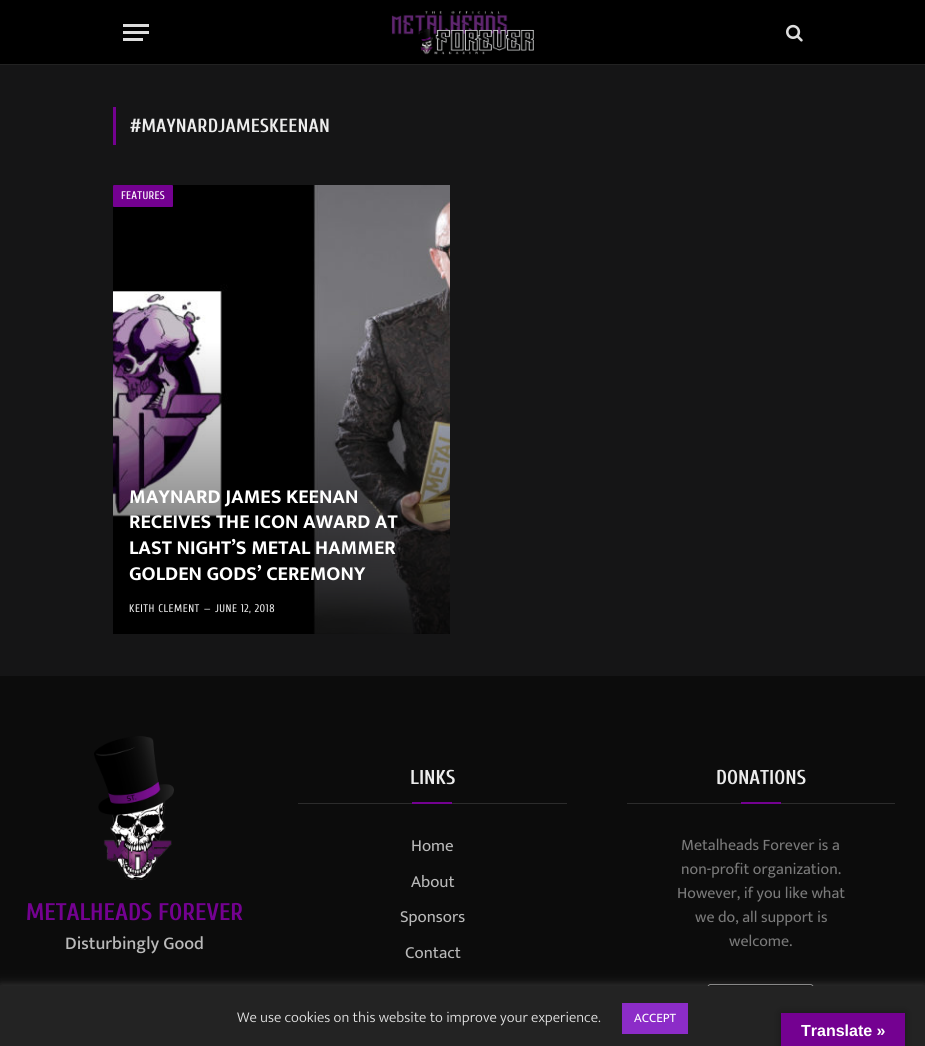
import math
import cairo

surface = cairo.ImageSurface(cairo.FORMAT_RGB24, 925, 1046)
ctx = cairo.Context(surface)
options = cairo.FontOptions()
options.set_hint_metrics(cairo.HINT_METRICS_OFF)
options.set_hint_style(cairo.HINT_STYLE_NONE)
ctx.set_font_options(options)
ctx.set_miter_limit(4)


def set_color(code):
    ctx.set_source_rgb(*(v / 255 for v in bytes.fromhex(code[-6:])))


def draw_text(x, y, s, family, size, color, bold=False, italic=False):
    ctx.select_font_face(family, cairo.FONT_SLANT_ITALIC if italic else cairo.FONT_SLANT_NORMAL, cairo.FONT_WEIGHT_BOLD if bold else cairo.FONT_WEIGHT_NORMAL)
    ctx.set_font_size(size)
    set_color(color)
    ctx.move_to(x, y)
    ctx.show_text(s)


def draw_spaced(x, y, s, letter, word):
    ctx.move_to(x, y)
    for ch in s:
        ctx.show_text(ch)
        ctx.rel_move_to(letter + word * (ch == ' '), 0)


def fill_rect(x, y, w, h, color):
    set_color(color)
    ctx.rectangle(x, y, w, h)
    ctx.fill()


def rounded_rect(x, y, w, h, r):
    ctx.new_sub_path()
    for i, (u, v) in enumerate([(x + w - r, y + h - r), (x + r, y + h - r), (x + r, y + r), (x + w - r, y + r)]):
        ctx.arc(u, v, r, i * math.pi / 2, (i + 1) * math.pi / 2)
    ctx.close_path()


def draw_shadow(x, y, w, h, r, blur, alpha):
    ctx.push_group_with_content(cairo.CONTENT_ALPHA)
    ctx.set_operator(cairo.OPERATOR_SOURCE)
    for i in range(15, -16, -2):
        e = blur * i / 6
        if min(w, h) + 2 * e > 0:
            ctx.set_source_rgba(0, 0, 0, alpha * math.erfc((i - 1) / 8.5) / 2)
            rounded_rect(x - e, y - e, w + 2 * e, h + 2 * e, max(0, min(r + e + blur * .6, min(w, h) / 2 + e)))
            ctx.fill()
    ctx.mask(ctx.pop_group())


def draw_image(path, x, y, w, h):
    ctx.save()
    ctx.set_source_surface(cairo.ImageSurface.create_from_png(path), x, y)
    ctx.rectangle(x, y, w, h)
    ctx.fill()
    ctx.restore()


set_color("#151516")
ctx.paint()
fill_rect(0, 0, 925, 64, "#000000")
fill_rect(0, 64, 925, 1, "#222222")
fill_rect(123, 38, 20, 3, "#dddddd")
fill_rect(123, 24, 26, 3, "#dddddd")
fill_rect(123, 31, 26, 3, "#dddddd")
draw_image("assets/img1.png", 391, 10, 143, 45)
draw_image("assets/img2.png", 786, 24, 17, 18)
fill_rect(113, 107, 3, 38, "#740191")
ctx.select_font_face("Cuprum", cairo.FONT_SLANT_NORMAL, cairo.FONT_WEIGHT_BOLD)
ctx.set_font_size(19)
set_color("#ececec")
draw_spaced(130, 132, "#MAYNARDJAMESKEENAN", 0.2, 0)
draw_image("assets/img3.png", 113, 185, 337, 449)
set_color("#740191")
rounded_rect(113, 185, 60, 22, 1)
ctx.fill()
ctx.select_font_face("Cuprum Medium")
ctx.set_font_size(11)
set_color("#ffffff")
draw_spaced(121, 199, "FEATURES", 0.25, 0)
draw_text(129, 503, "MAYNARD JAMES KEENAN", "Mukta Vaani", 20, "#ffffff", bold=True)
draw_text(129, 528, "RECEIVES THE ICON AWARD AT", "Mukta Vaani", 20, "#ffffff", bold=True)
draw_text(129, 554, "LAST NIGHT’S METAL HAMMER", "Mukta Vaani", 20, "#ffffff", bold=True)
draw_text(129, 580, "GOLDEN GODS’ CEREMONY", "Mukta Vaani", 20, "#ffffff", bold=True)
ctx.select_font_face("Cuprum")
ctx.set_font_size(11)
set_color("#ececec")
draw_spaced(129, 612, "KEITH CLEMENT", 0.5, 0)
draw_text(204, 612, "—", "Cuprum", 10, "#ececec")
ctx.set_font_size(11)
draw_spaced(215, 612, "JUNE 12, 2018", 0.5, 0)
fill_rect(0, 676, 925, 310, "#0c0c0c")
draw_image("assets/img4.png", 94, 736, 80, 144)
draw_text(26, 920, "METALHEADS FOREVER", "Cuprum", 24, "#740191", bold=True)
draw_text(65, 949, "Disturbingly Good", "Mukta Vaani Medium", 18, "#bababa")
fill_rect(298, 803, 269, 1, "#2c2c2c")
draw_text(410, 784, "LINKS", "Cuprum", 20, "#ececec", bold=True)
fill_rect(412, 802, 40, 2, "#740191")
draw_text(411, 851, "Home", "Mukta Vaani", 17, "#bababa")
draw_text(411, 887, "About", "Mukta Vaani", 17, "#bababa")
draw_text(400, 922, "Sponsors", "Mukta Vaani", 17, "#bababa")
draw_text(405, 958, "Contact", "Mukta Vaani", 17, "#bababa")
fill_rect(627, 803, 268, 1, "#2c2c2c")
draw_text(716, 784, "DONATIONS", "Cuprum", 20, "#ececec", bold=True)
fill_rect(741, 802, 40, 2, "#740191")
draw_text(681, 850, "Metalheads Forever is a", "Mukta Vaani", 16, "#7a7a7a")
draw_text(681, 874, "non-profit organization.", "Mukta Vaani", 16, "#7a7a7a")
draw_text(677, 898, "However, if you like what", "Mukta Vaani", 16, "#7a7a7a")
draw_text(695, 922, "we do, all support is", "Mukta Vaani", 16, "#7a7a7a")
draw_text(729, 946, "welcome.", "Mukta Vaani", 16, "#7a7a7a")
draw_image("assets/img5.png", 707, 984, 107, 2)
set_color("#acabab")
draw_shadow(0, 985, 925, 60, 0, 5, 0.3)
fill_rect(0, 986, 925, 60, "#232323")
draw_text(237, 1022, "We use cookies on this website to improve your experience.", "Mukta Vaani Light", 15, "#e4e4e4")
fill_rect(622, 1003, 66, 31, "#8c2cc8")
draw_text(634, 1022, "ACCEPT", "Mukta Vaani", 13, "#ffffff")
set_color("#000000")
draw_shadow(781, 1013, 124, 33, 0, 4.5, 0.3)
fill_rect(781, 1013, 124, 33, "#740191")
draw_text(801, 1036, "Translate »", "Liberation Sans", 16, "#ffffff", bold=True)
surface.write_to_png("output.png")
